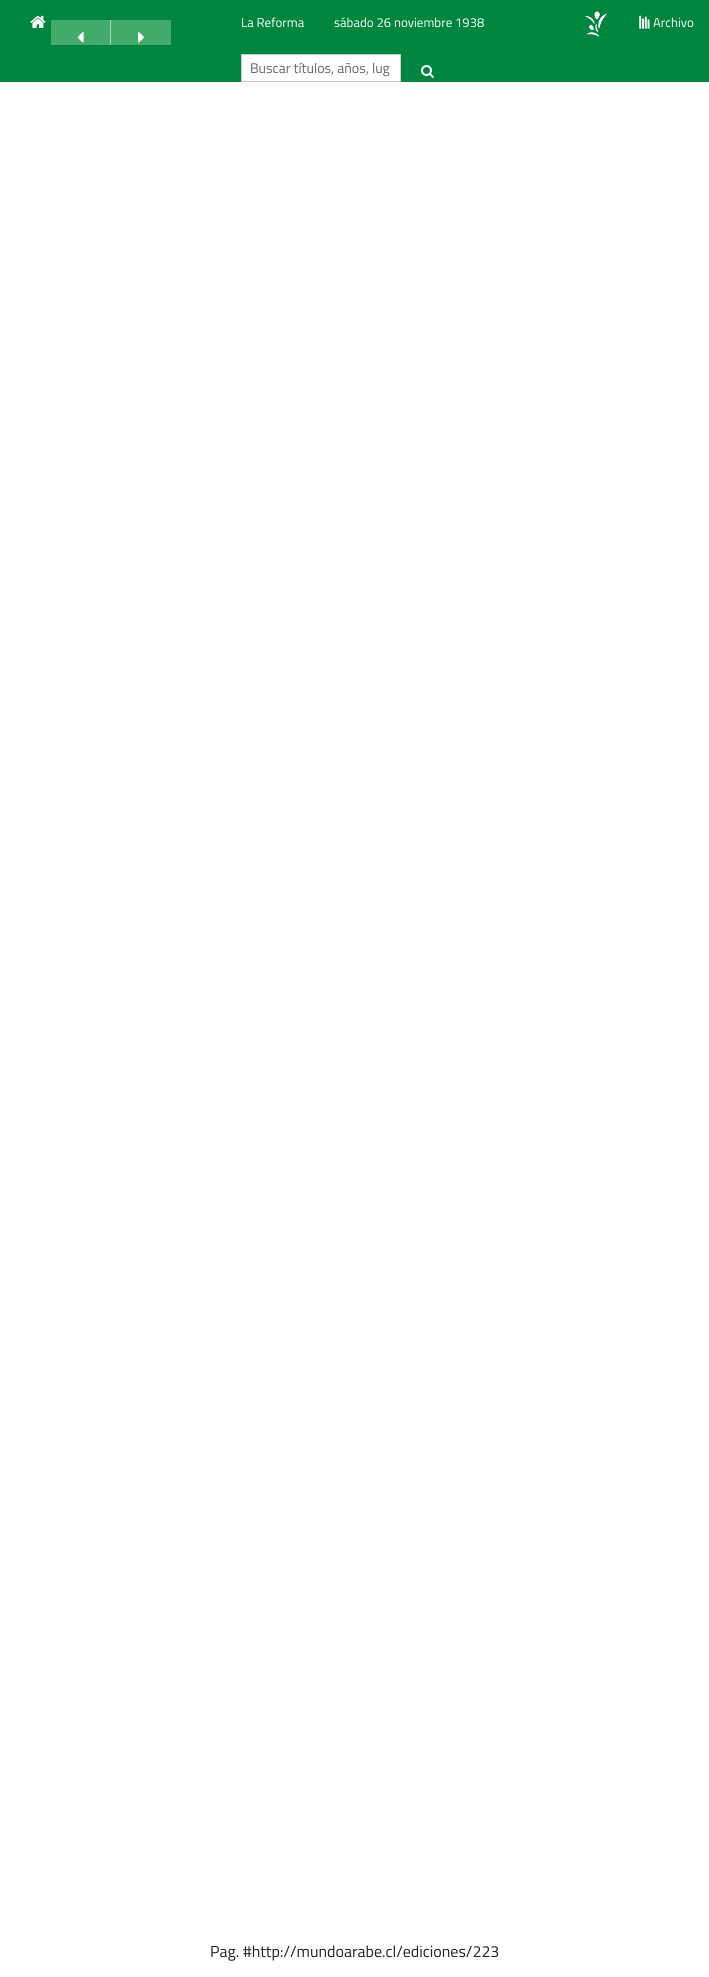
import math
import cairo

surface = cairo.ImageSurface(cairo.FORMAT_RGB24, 709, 1977)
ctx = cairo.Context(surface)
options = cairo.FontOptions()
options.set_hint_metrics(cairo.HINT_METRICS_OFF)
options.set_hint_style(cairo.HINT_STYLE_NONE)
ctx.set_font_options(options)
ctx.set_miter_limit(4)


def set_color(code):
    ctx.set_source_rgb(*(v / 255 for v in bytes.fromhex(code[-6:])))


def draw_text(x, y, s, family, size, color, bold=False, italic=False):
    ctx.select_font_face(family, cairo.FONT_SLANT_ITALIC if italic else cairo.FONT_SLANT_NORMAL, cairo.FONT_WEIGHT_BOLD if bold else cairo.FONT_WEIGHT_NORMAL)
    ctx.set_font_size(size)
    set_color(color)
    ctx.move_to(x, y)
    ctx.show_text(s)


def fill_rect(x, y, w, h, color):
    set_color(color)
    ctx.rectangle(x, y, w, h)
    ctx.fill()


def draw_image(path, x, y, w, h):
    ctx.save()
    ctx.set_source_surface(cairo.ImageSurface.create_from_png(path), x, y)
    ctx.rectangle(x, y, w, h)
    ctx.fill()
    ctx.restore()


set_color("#ffffff")
ctx.paint()
fill_rect(0, 0, 709, 45, "#00853f")
draw_image("assets/img1.png", 30, 15, 16, 13)
fill_rect(51, 20, 59, 25, "#43ac6a")
draw_image("assets/img2.png", 77, 32, 7, 11)
fill_rect(111, 20, 60, 25, "#43ac6a")
fill_rect(110, 20, 1, 28, "#a1d6b5")
draw_image("assets/img3.png", 138, 32, 6, 11)
draw_text(241, 27, "La Reforma", "Titillium Web", 13, "#ffffff")
draw_text(334, 27, "sábado 26 noviembre 1938", "Titillium Web", 13, "#ffffff")
draw_image("assets/img4.png", 585, 11, 22, 26)
draw_image("assets/img5.png", 639, 15, 11, 14)
draw_text(653, 27, "Archivo", "Titillium Web", 13, "#ffffff")
fill_rect(0, 45, 709, 37, "#00853f")
set_color("#ffffff")
ctx.rectangle(241.5, 54.5, 159, 27)
ctx.fill_preserve()
set_color("#cccccc")
ctx.set_line_width(1)
ctx.stroke()
draw_text(250, 73, "Buscar títulos, años, lug", "Titillium Web", 14, "#666666")
draw_image("assets/img6.png", 421, 65, 13, 13)
draw_text(210, 1957, "Pag. #http://mundoarabe.cl/ediciones/223", "Titillium Web", 16, "#222222")
surface.write_to_png("output.png")
